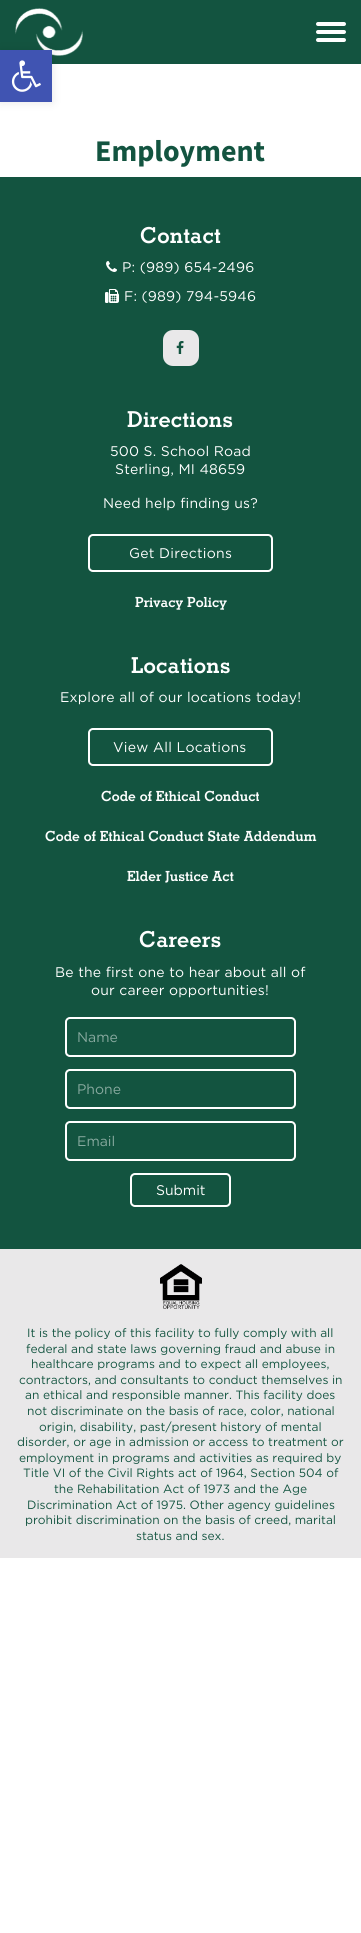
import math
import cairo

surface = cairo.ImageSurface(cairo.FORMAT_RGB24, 361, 1933)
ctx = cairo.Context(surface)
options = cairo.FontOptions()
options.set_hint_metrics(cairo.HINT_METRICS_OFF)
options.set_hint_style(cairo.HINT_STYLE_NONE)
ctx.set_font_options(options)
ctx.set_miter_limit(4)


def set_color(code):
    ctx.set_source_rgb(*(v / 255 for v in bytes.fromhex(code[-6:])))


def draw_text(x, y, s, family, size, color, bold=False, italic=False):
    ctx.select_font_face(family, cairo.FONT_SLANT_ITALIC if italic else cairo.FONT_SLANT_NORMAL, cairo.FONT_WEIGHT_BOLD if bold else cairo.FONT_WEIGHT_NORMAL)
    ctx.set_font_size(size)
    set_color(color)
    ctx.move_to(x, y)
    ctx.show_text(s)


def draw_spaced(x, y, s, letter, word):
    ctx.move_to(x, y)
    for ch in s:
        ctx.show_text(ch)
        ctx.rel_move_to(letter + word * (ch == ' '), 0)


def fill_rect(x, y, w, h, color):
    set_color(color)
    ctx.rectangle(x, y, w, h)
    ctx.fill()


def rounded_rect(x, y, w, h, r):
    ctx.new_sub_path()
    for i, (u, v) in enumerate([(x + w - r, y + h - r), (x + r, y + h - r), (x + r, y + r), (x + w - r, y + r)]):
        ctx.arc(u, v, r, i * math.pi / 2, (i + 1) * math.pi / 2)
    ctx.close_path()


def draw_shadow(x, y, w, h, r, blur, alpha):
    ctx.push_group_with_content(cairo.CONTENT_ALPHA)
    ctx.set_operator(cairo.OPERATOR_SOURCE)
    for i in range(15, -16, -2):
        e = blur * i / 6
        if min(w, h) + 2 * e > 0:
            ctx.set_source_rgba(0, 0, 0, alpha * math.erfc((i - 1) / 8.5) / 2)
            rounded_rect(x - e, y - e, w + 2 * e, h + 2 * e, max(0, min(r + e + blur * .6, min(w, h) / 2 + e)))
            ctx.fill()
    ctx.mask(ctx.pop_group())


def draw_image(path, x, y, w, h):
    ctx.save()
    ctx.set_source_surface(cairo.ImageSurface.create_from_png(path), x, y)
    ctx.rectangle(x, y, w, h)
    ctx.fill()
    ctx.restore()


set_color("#ffffff")
ctx.paint()
fill_rect(0, 0, 361, 64, "#135440")
draw_image("assets/img1.png", 15, 8, 68, 48)
set_color("#ffffff")
rounded_rect(316, 22, 30, 4, 2)
ctx.fill()
rounded_rect(316, 30, 30, 4, 2)
ctx.fill()
rounded_rect(316, 38, 30, 4, 2)
ctx.fill()
set_color("#000000")
draw_shadow(0, 50, 52, 52, 0, 5, 0.1)
fill_rect(0, 50, 52, 52, "#4054b2")
draw_image("assets/img2.png", 11, 60, 30, 32)
draw_text(95, 161, "Employment", "Source Sans Pro", 30, "#135440", bold=True)
fill_rect(0, 177, 361, 1072, "#135440")
ctx.select_font_face("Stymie", cairo.FONT_SLANT_NORMAL, cairo.FONT_WEIGHT_BOLD)
ctx.set_font_size(22)
set_color("#ffffff")
draw_spaced(140, 243, "Contact", 0.2, 0)
draw_image("assets/img3.png", 106, 261, 11, 11)
ctx.select_font_face("Gotham")
ctx.set_font_size(14)
draw_spaced(122, 272, "P: (989) 654-2496", 0.2, 0)
draw_image("assets/img4.png", 105, 289, 14, 14)
draw_spaced(124, 301, "F: (989) 794-5946", 0.2, 0)
set_color("#e9e8e9")
rounded_rect(163, 330, 36, 36, 10)
ctx.fill()
draw_image("assets/img5.png", 176, 341, 8, 13)
ctx.select_font_face("Stymie", cairo.FONT_SLANT_NORMAL, cairo.FONT_WEIGHT_BOLD)
ctx.set_font_size(22)
set_color("#ffffff")
draw_spaced(127, 427, "Directions", 0.2, 0)
ctx.select_font_face("Gotham")
ctx.set_font_size(14)
draw_spaced(110, 456, "500 S. School Road", 0.2, 0)
draw_spaced(115, 474, "Sterling, MI 48659", 0.2, 0)
draw_spaced(103, 508, "Need help finding us?", 0.2, 0)
rounded_rect(89, 535, 183, 36, 4)
ctx.stroke()
draw_spaced(129, 558, "Get Directions", 0.25, 0)
draw_text(135, 607, "Privacy Policy", "Stymie", 14, "#ffffff", bold=True)
ctx.set_font_size(22)
draw_spaced(131, 673, "Locations", 0.2, 0)
ctx.select_font_face("Gotham")
ctx.set_font_size(14)
draw_spaced(60, 702, "Explore all of our locations today!", 0.2, 0)
rounded_rect(89, 729, 183, 36, 4)
ctx.stroke()
draw_spaced(113, 752, "View All Locations", 0.25, 0)
draw_text(101, 801, "Code of Ethical Conduct", "Stymie", 14, "#ffffff", bold=True)
draw_text(45, 841, "Code of Ethical Conduct State Addendum", "Stymie", 14, "#ffffff", bold=True)
draw_text(127, 881, "Elder Justice Act", "Stymie", 14, "#ffffff", bold=True)
ctx.set_font_size(22)
draw_spaced(139, 947, "Careers", 0.2, 0)
ctx.select_font_face("Gotham")
ctx.set_font_size(14)
draw_spaced(55, 977, "Be the first one to hear about all of", 0.2, 0)
draw_spaced(91, 995, "our career opportunities!", 0.2, 0)
rounded_rect(66, 1018, 229, 38, 4)
ctx.stroke()
draw_text(77, 1042, "Name", "Gotham", 14, "#89aaa0")
rounded_rect(66, 1070, 229, 38, 4)
set_color("#ffffff")
ctx.stroke()
draw_text(77, 1094, "Phone", "Gotham", 14, "#89aaa0")
rounded_rect(66, 1122, 229, 38, 4)
set_color("#ffffff")
ctx.stroke()
draw_text(77, 1146, "Email", "Gotham", 14, "#89aaa0")
rounded_rect(131, 1174, 99, 32, 4)
set_color("#ffffff")
ctx.stroke()
draw_text(156, 1195, "Submit", "Gotham", 14, "#ffffff")
fill_rect(0, 1249, 361, 309, "#e9e8e9")
draw_image("assets/img6.png", 160, 1264, 42, 45)
draw_text(27, 1337, "It is the policy of this facility to fully comply with all", "Gotham", 12, "#135440")
draw_text(26, 1353, "federal and state laws governing fraud and abuse in", "Gotham", 12, "#135440")
draw_text(31, 1368, "healthcare programs and to expect all employees,", "Gotham", 12, "#135440")
draw_text(19, 1384, "contractors, and consultants to conduct themselves in", "Gotham", 12, "#135440")
draw_text(25, 1399, "an ethical and responsible manner. This facility does", "Gotham", 12, "#135440")
draw_text(27, 1415, "not discriminate on the basis of race, color, national", "Gotham", 12, "#135440")
draw_text(39, 1431, "origin, disability, past/present history of mental", "Gotham", 12, "#135440")
draw_text(17, 1446, "disorder, or age in admission or access to treatment or", "Gotham", 12, "#135440")
draw_text(19, 1462, "employment in programs and activities as required by", "Gotham", 12, "#135440")
draw_text(23, 1477, "Title VI of the Civil Rights act of 1964, Section 504 of", "Gotham", 12, "#135440")
draw_text(54, 1493, "the Rehabilitation Act of 1973 and the Age", "Gotham", 12, "#135440")
draw_text(27, 1509, "Discrimination Act of 1975. Other agency guidelines", "Gotham", 12, "#135440")
draw_text(25, 1524, "prohibit discrimination on the basis of creed, marital", "Gotham", 12, "#135440")
draw_text(136, 1540, "status and sex.", "Gotham", 12, "#135440")
surface.write_to_png("output.png")
